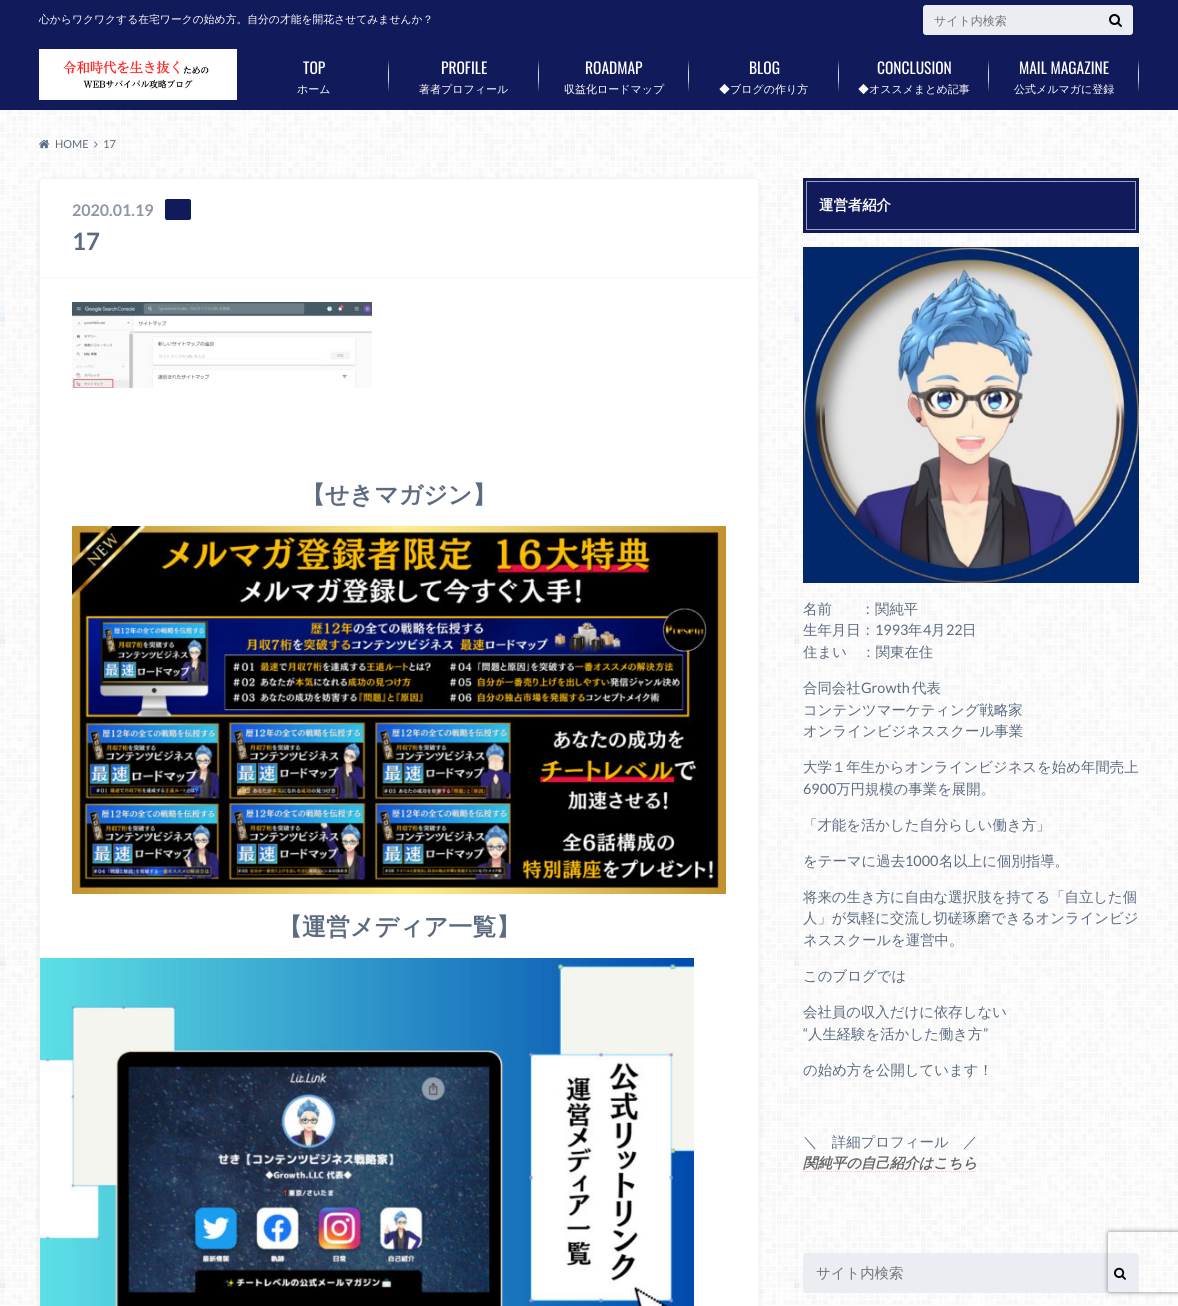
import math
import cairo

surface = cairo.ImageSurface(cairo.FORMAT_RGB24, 1178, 1306)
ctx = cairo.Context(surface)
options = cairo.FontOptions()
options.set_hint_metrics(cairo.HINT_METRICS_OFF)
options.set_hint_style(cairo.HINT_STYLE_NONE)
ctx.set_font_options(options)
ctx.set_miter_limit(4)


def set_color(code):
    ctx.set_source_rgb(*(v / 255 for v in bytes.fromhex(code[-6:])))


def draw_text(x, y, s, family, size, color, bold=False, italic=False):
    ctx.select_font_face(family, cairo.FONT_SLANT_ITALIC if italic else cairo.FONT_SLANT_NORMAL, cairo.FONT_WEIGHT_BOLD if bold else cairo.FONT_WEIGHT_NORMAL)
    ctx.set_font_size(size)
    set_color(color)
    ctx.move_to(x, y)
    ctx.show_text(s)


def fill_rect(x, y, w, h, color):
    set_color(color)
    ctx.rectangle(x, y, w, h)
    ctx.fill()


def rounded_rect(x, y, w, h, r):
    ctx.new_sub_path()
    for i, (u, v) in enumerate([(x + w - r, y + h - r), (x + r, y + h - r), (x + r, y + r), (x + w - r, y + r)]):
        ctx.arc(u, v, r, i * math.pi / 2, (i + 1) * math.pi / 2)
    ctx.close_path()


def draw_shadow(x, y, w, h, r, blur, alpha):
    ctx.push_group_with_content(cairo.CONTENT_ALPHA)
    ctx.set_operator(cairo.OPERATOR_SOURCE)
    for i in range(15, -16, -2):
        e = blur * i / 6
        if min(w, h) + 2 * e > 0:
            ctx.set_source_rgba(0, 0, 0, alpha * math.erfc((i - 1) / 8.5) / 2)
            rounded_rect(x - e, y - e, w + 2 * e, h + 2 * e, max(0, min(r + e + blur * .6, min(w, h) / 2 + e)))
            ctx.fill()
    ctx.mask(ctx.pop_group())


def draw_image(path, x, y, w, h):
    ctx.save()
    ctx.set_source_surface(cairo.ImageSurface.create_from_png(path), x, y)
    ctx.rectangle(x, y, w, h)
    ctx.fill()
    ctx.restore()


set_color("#ffffff")
ctx.paint()
draw_image("assets/img1.png", 0, 110, 1178, 1195)
fill_rect(0, 0, 1178, 110, "#111a5b")
draw_text(39, 23, "心からワクワクする在宅ワークの始め方。自分の才能を開花させてみませんか？", "WenQuanYi Zen Hei Medium", 10.8, "#ffffff")
set_color("#eaedf2")
rounded_rect(923, 5, 210, 30, 3)
ctx.fill()
draw_text(934, 25, "サイト内検索", "WenQuanYi Zen Hei Medium", 12, "#757575")
draw_image("assets/img2.png", 1109, 14, 13, 13)
draw_image("assets/img3.png", 39, 49, 198, 51)
draw_image("assets/img4.png", 388, 60, 1, 32)
draw_text(303, 74, "TOP", "Oswald", 15.5, "#ffffff")
draw_text(297, 93, "ホーム", "WenQuanYi Zen Hei Medium", 11, "#ffffff")
draw_image("assets/img4.png", 538, 60, 1, 32)
draw_text(441, 74, "PROFILE", "Oswald", 15.5, "#ffffff")
draw_text(419, 93, "著者プロフィール", "WenQuanYi Zen Hei Medium", 11, "#ffffff")
draw_image("assets/img4.png", 688, 60, 1, 32)
draw_text(585, 74, "ROADMAP", "Oswald", 15.5, "#ffffff")
draw_text(564, 93, "収益化ロードマップ", "WenQuanYi Zen Hei Medium", 11, "#ffffff")
draw_image("assets/img4.png", 838, 60, 1, 32)
draw_text(749, 74, "BLOG", "Oswald", 15.5, "#ffffff")
draw_text(719, 93, "◆ブログの作り方", "WenQuanYi Zen Hei Medium", 11, "#ffffff")
draw_image("assets/img4.png", 988, 60, 1, 32)
draw_text(877, 74, "CONCLUSION", "Oswald", 15.5, "#ffffff")
draw_text(858, 93, "◆オススメまとめ記事", "WenQuanYi Zen Hei Medium", 11, "#ffffff")
draw_image("assets/img4.png", 1138, 60, 1, 32)
draw_text(1019, 74, "MAIL MAGAZINE", "Oswald", 15.5, "#ffffff")
draw_text(1014, 93, "公式メルマガに登録", "WenQuanYi Zen Hei Medium", 11, "#ffffff")
draw_image("assets/img5.png", 39, 139, 11, 10)
draw_text(55, 148, "HOME", "Lato", 11, "#5c6b80")
draw_image("assets/img6.png", 94, 141, 4, 7)
draw_text(103, 148, "17", "Lato", 11, "#5c6b80")
set_color("#8a8a8a")
draw_shadow(39, 180, 720, 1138, 4, 2.5, 0.15)
set_color("#ffffff")
rounded_rect(39.5, 178.5, 719, 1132, 3.5)
ctx.fill_preserve()
set_color("#f3f3f3")
ctx.set_line_width(1)
ctx.stroke()
fill_rect(40, 277, 718, 1, "#f8f9fa")
draw_text(72, 216, "2020.01.19", "Lato", 16, "#8d97a6", bold=True)
set_color("#111a5b")
rounded_rect(165, 199, 26, 21, 2)
ctx.fill()
draw_text(72, 250, "17", "Lato", 24, "#5c6b80", bold=True)
draw_image("assets/img7.png", 72, 302, 300, 86)
draw_text(301, 503, "【せきマガジン】", "WenQuanYi Zen Hei", 24, "#5c6b80", bold=True)
draw_image("assets/img8.png", 72, 526, 654, 368)
draw_text(278, 935, "【運営メディア一覧】", "WenQuanYi Zen Hei", 24, "#5c6b80", bold=True)
draw_image("assets/img9.png", 40, 958, 654, 348)
fill_rect(803, 178, 336, 55, "#111a5b")
ctx.rectangle(806.5, 181.5, 329, 48)
set_color("#a0a3bd")
ctx.stroke()
draw_text(819, 210, "運営者紹介", "WenQuanYi Zen Hei", 14.4, "#ffffff", bold=True)
draw_image("assets/img10.png", 803, 247, 336, 336)
draw_text(803, 614, "名前　　：関純平", "WenQuanYi Zen Hei Medium", 14.4, "#5c6b80")
draw_text(803, 635, "生年月日：", "WenQuanYi Zen Hei Medium", 14.4, "#5c6b80")
draw_text(875, 635, "1993", "Lato", 14.4, "#5c6b80")
draw_text(908, 635, "年", "WenQuanYi Zen Hei Medium", 14.4, "#5c6b80")
draw_text(923, 635, "4", "Lato", 14.4, "#5c6b80")
draw_text(931, 635, "月", "WenQuanYi Zen Hei Medium", 14.4, "#5c6b80")
draw_text(946, 635, "22", "Lato", 14.4, "#5c6b80")
draw_text(962, 635, "日", "WenQuanYi Zen Hei Medium", 14.4, "#5c6b80")
draw_text(803, 657, "住まい　：関東在住", "WenQuanYi Zen Hei Medium", 14.4, "#5c6b80")
draw_text(803, 693, "合同会社", "WenQuanYi Zen Hei Medium", 14.4, "#5c6b80")
draw_text(861, 693, "Growth", "Lato", 14.4, "#5c6b80")
draw_text(912, 693, "代表", "WenQuanYi Zen Hei Medium", 14.4, "#5c6b80")
draw_text(803, 715, "コンテンツマーケティング戦略家", "WenQuanYi Zen Hei Medium", 14.4, "#5c6b80")
draw_text(803, 736, "オンラインビジネススクール事業", "WenQuanYi Zen Hei Medium", 14.4, "#5c6b80")
draw_text(803, 772, "大学１年生からオンラインビジネスを始め年間売上", "WenQuanYi Zen Hei Medium", 14.4, "#5c6b80")
draw_text(803, 794, "6900", "Lato", 14.4, "#5c6b80")
draw_text(836, 794, "万円規模の事業を展開。", "WenQuanYi Zen Hei Medium", 14.4, "#5c6b80")
draw_text(803, 830, "「才能を活かした自分らしい働き方」", "WenQuanYi Zen Hei Medium", 14.4, "#5c6b80")
draw_text(803, 866, "をテーマに過去", "WenQuanYi Zen Hei Medium", 14.4, "#5c6b80")
draw_text(905, 866, "1000", "Lato", 14.4, "#5c6b80")
draw_text(939, 866, "名以上に個別指導。", "WenQuanYi Zen Hei Medium", 14.4, "#5c6b80")
draw_text(803, 902, "将来の生き方に自由な選択肢を持てる「自立した個", "WenQuanYi Zen Hei Medium", 14.4, "#5c6b80")
draw_text(803, 923, "人」が気軽に交流し切磋琢磨できるオンラインビジ", "WenQuanYi Zen Hei Medium", 14.4, "#5c6b80")
draw_text(803, 945, "ネススクールを運営中。", "WenQuanYi Zen Hei Medium", 14.4, "#5c6b80")
draw_text(803, 981, "このブログでは", "WenQuanYi Zen Hei Medium", 14.4, "#5c6b80")
draw_text(803, 1017, "会社員の収入だけに依存しない", "WenQuanYi Zen Hei Medium", 14.4, "#5c6b80")
draw_text(803, 1039, "“", "Lato", 14.4, "#5c6b80")
draw_text(808, 1039, "人生経験を活かした働き方", "WenQuanYi Zen Hei Medium", 14.4, "#5c6b80")
draw_text(983, 1039, "”", "Lato", 14.4, "#5c6b80")
draw_text(803, 1075, "の始め方を公開しています！", "WenQuanYi Zen Hei Medium", 14.4, "#5c6b80")
draw_text(803, 1147, "＼　詳細プロフィール　／", "WenQuanYi Zen Hei Medium", 14.4, "#5c6b80")
draw_text(803, 1168, "関純平の自己紹介はこちら", "WenQuanYi Zen Hei", 14.4, "#666666", bold=True, italic=True)
ctx.new_path()
ctx.move_to(803, 1171.5)
ctx.line_to(977, 1171.5)
set_color("#ffc0cb")
ctx.set_dash([1, 1])
ctx.stroke()
set_color("#eaedf2")
rounded_rect(803, 1253, 336, 40, 3)
ctx.fill()
draw_text(816, 1278, "サイト内検索", "WenQuanYi Zen Hei Medium", 14.4, "#757575")
draw_image("assets/img11.png", 1114, 1267, 12, 13)
ctx.save()
ctx.set_fill_rule(cairo.FILL_RULE_EVEN_ODD)
ctx.new_path()
ctx.move_to(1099, 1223)
ctx.line_to(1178, 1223)
ctx.line_to(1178, 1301)
ctx.line_to(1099, 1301)
ctx.close_path()
ctx.move_to(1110, 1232)
ctx.line_to(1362, 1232)
ctx.curve_to(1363, 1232, 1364, 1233, 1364, 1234)
ctx.line_to(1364, 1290)
ctx.curve_to(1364, 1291, 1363, 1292, 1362, 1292)
ctx.line_to(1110, 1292)
ctx.curve_to(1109, 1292, 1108, 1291, 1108, 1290)
ctx.line_to(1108, 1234)
ctx.curve_to(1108, 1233, 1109, 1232, 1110, 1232)
ctx.close_path()
ctx.clip()
set_color("#808080")
draw_shadow(1108, 1232, 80, 60, 2, 2.5, 1)
ctx.restore()
surface.write_to_png("output.png")
